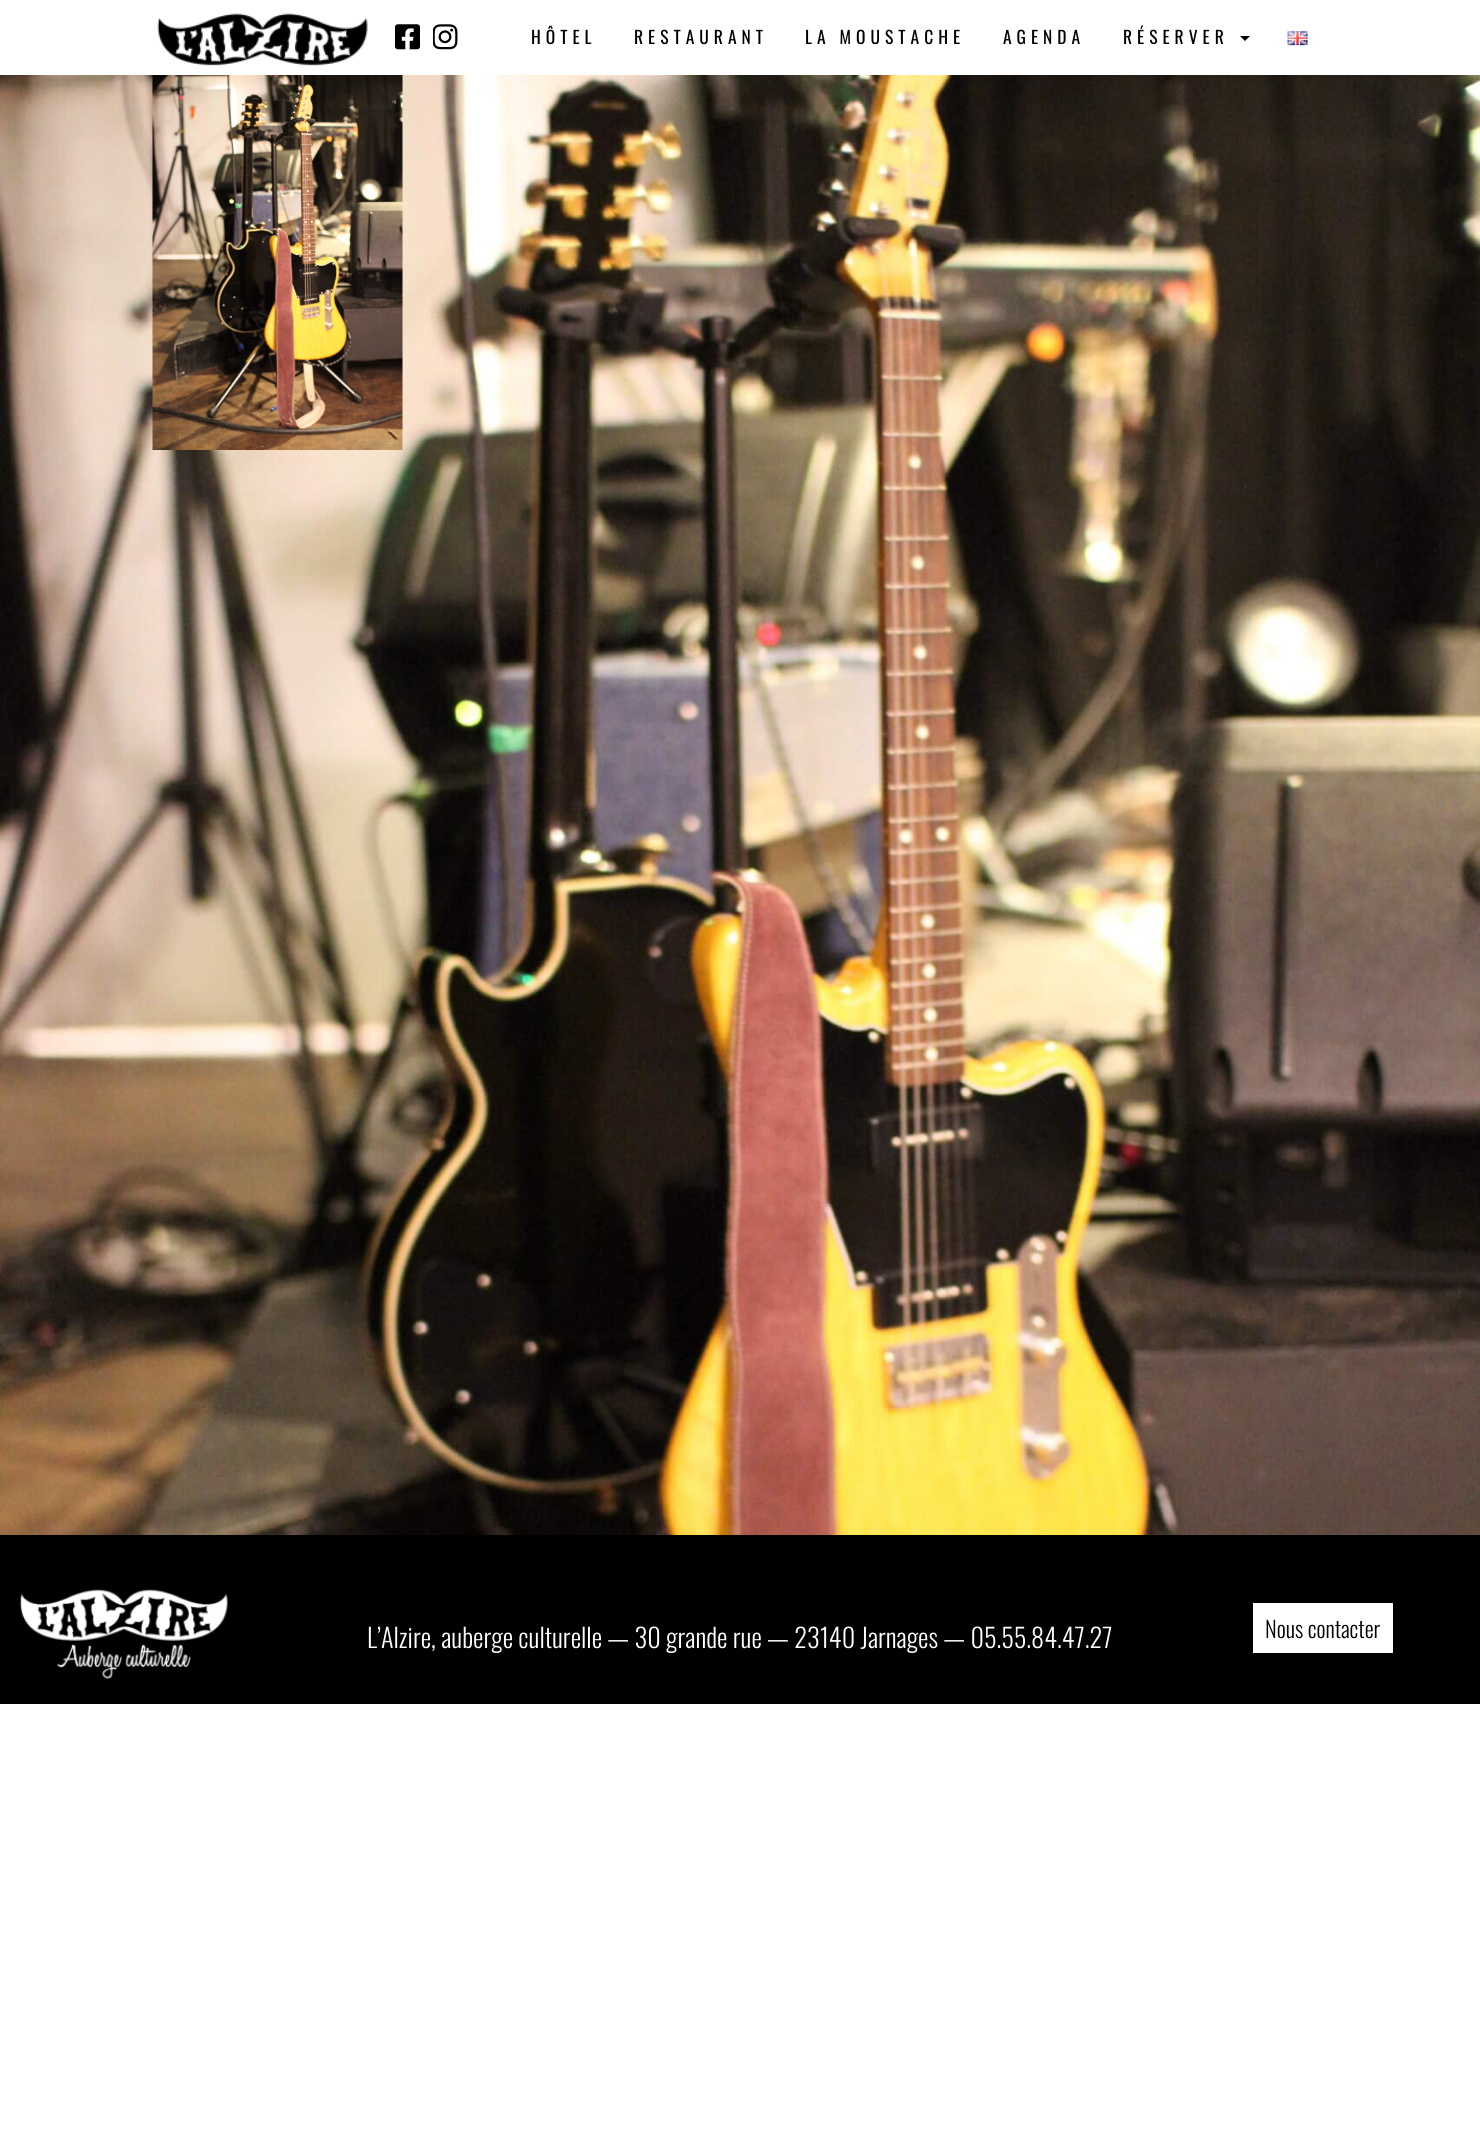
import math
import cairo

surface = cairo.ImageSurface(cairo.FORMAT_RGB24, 1480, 2149)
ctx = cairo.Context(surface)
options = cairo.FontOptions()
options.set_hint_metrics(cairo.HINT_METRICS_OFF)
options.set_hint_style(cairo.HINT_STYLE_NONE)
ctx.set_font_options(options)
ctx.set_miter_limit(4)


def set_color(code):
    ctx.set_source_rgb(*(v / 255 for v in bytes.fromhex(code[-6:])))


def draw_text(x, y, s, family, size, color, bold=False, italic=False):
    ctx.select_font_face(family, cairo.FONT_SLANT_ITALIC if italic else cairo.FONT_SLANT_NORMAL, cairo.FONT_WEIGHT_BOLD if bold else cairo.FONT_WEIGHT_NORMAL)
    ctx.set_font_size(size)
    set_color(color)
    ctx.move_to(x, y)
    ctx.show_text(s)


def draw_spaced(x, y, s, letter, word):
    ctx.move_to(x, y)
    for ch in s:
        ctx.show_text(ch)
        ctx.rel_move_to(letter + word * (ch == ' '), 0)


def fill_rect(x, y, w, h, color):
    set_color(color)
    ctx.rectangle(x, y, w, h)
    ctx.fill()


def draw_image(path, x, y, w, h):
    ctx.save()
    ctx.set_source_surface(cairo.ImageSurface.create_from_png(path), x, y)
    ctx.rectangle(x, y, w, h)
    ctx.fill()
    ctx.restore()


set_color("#ffffff")
ctx.paint()
draw_image("assets/img1.png", 157, 13, 211, 53)
draw_image("assets/img2.png", 395, 24, 25, 26)
draw_image("assets/img3.png", 433, 24, 25, 26)
ctx.select_font_face("Oswald")
ctx.set_font_size(17.5)
set_color("#000000")
draw_spaced(531, 44, "HÔTEL", 5, 0)
draw_spaced(634, 44, "RESTAURANT", 5, 0)
draw_spaced(805, 44, "LA MOUSTACHE", 5, 0)
draw_spaced(1003, 44, "AGENDA", 5, 0)
draw_spaced(1123, 44, "RÉSERVER", 5, 0)
ctx.new_path()
ctx.move_to(1240, 36)
ctx.line_to(1250, 36)
ctx.line_to(1245, 41)
ctx.close_path()
ctx.fill()
draw_image("assets/img4.png", 1287, 31, 21, 15)
draw_image("assets/img5.png", 0, 75, 1480, 1460)
draw_image("assets/img6.png", 152, 75, 251, 375)
fill_rect(0, 1535, 1480, 169, "#000000")
draw_image("assets/img7.png", 20, 1589, 208, 90)
draw_text(367, 1648, "L’Alzire, auberge culturelle — 30 grande rue — 23140 Jarnages — 05.55.84.47.27", "Oswald Light", 26.25, "#ffffff")
fill_rect(1253, 1603, 140, 50, "#ffffff")
draw_text(1265, 1638, "Nous contacter", "Oswald Light", 22.5, "#000000")
surface.write_to_png("output.png")
